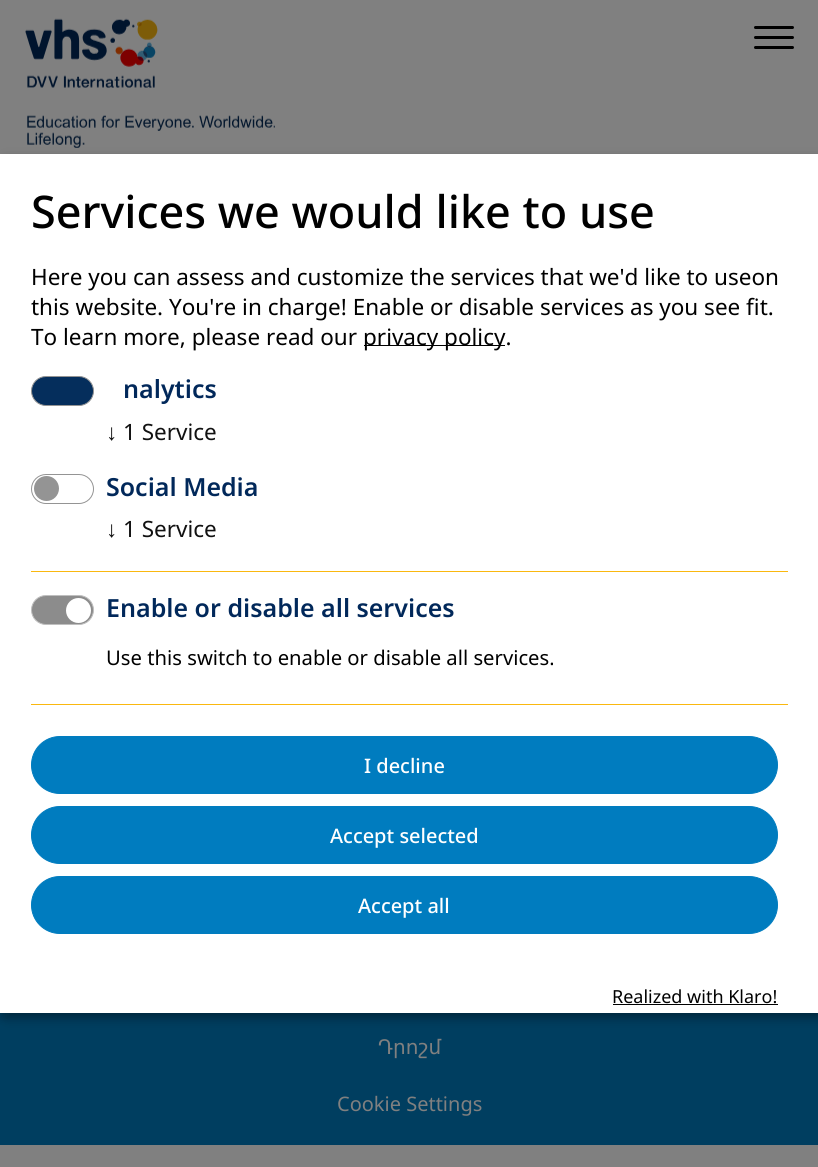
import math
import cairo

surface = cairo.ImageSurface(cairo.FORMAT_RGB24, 818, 1167)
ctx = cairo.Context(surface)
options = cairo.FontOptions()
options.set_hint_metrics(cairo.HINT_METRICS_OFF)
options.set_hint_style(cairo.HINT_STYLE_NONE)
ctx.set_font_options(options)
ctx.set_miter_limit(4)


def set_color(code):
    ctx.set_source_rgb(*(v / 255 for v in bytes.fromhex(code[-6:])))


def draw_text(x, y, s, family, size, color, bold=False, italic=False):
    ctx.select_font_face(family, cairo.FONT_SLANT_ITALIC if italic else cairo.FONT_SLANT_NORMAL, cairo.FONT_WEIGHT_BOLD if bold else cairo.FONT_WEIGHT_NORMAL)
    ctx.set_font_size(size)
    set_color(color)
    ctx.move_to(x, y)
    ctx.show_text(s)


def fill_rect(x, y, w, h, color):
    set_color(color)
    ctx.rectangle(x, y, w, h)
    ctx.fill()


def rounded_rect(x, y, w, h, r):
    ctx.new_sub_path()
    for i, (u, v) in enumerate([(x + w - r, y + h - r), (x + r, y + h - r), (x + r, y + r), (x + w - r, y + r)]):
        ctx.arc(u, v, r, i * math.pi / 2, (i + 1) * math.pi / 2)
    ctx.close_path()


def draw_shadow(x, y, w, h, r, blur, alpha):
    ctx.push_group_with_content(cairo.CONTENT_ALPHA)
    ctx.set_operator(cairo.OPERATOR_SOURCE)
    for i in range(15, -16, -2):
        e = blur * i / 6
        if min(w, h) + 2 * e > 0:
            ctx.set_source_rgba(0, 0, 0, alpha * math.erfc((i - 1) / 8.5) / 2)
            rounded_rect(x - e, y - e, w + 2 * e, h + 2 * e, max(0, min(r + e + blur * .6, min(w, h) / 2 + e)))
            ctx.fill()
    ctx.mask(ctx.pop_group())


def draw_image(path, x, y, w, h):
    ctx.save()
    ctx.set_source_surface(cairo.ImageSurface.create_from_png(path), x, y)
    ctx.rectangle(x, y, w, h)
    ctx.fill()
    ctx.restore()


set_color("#808080")
ctx.paint()
draw_image("assets/img1.png", 25, 18, 250, 130)
set_color("#000000")
rounded_rect(754, 26, 40, 3, 1.5)
ctx.fill()
rounded_rect(754, 36, 40, 3, 1.5)
ctx.fill()
rounded_rect(754, 46, 40, 3, 1.5)
ctx.fill()
fill_rect(0, 1013, 818, 132, "#003e60")
set_color("#000000")
draw_shadow(6, 160, 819, 859, 0, 6, 0.19)
draw_shadow(0, 159, 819, 859, 0, 4, 0.2)
fill_rect(0, 154, 818, 859, "#ffffff")
draw_text(31, 228, "Services we would like to use", "Noto Sans Medium", 45, "#000000")
draw_text(31, 285, "Here you can assess and customize the services that we'd like to useon", "Noto Sans", 22.5, "#000000")
draw_text(31, 315, "this website. You're in charge! Enable or disable services as you see fit.", "Noto Sans", 22.5, "#000000")
draw_text(31, 345, "To learn more, please read our", "Noto Sans", 22.5, "#000000")
fill_rect(364, 345, 141, 1, "#000000")
draw_text(363, 345, "privacy policy.", "Noto Sans", 22.5, "#000000")
set_color("#052e5c")
rounded_rect(31.5, 376.5, 62, 29, 14.5)
ctx.fill_preserve()
set_color("#949494")
ctx.set_line_width(1)
ctx.stroke()
draw_text(123, 398, "nalytics", "Noto Sans SemiBold", 25, "#01285a")
draw_text(106, 440, "↓", "Liberation Serif", 22.5, "#111111")
draw_text(123, 440, "1 Service", "Noto Sans", 22.5, "#111111")
rounded_rect(31.5, 474.5, 62, 29, 14.5)
set_color("#949494")
ctx.stroke()
ctx.arc(46.5, 488.5, 12.5, 0, 2 * math.pi)
ctx.fill()
draw_text(106, 496, "Social Media", "Noto Sans SemiBold", 25, "#01285a")
draw_text(106, 537, "↓", "Liberation Serif", 22.5, "#111111")
draw_text(123, 537, "1 Service", "Noto Sans", 22.5, "#111111")
fill_rect(31, 571, 757, 1, "#fab80f")
set_color("#8c8c8c")
rounded_rect(31.5, 595.5, 62, 29, 14.5)
ctx.fill_preserve()
set_color("#bfbfbf")
ctx.stroke()
set_color("#ffffff")
ctx.arc(78.5, 610.5, 12.5, 0, 2 * math.pi)
ctx.fill()
draw_text(106, 617, "Enable or disable all services", "Noto Sans SemiBold", 25, "#01285a")
draw_text(106, 665, "Use this switch to enable or disable all services.", "Noto Sans", 20.25, "#000000")
fill_rect(31, 704, 757, 1, "#fab80f")
set_color("#007cbf")
rounded_rect(31.5, 736.5, 746, 57, 28.5)
ctx.fill_preserve()
ctx.stroke()
draw_text(364, 773, "I decline", "Noto Sans Medium", 20, "#ffffff")
set_color("#007cbf")
rounded_rect(31.5, 806.5, 746, 57, 28.5)
ctx.fill_preserve()
ctx.stroke()
draw_text(330, 843, "Accept selected", "Noto Sans Medium", 20, "#ffffff")
set_color("#007cbf")
rounded_rect(31.5, 876.5, 746, 57, 28.5)
ctx.fill_preserve()
ctx.stroke()
draw_text(358, 913, "Accept all", "Noto Sans Medium", 20, "#ffffff")
draw_text(612, 1003, "Realized with Klaro!", "Noto Sans", 18, "#000000")
fill_rect(613, 1004, 165, 1, "#000000")
draw_text(378, 1054, "Դրոշմ", "DejaVu Sans", 20, "#808080")
draw_text(337, 1111, "Cookie Settings", "Noto Sans", 20, "#808080")
surface.write_to_png("output.png")
